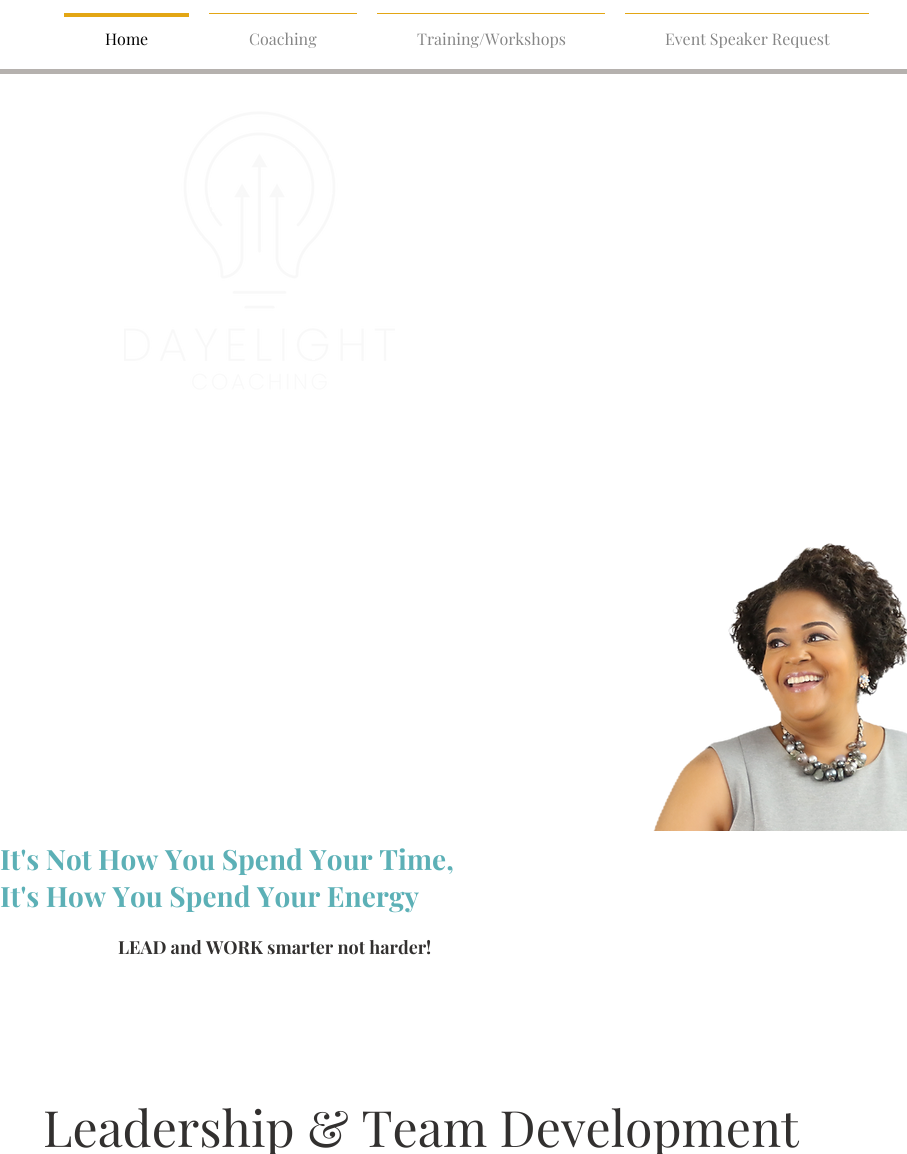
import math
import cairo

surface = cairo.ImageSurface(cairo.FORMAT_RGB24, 907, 1154)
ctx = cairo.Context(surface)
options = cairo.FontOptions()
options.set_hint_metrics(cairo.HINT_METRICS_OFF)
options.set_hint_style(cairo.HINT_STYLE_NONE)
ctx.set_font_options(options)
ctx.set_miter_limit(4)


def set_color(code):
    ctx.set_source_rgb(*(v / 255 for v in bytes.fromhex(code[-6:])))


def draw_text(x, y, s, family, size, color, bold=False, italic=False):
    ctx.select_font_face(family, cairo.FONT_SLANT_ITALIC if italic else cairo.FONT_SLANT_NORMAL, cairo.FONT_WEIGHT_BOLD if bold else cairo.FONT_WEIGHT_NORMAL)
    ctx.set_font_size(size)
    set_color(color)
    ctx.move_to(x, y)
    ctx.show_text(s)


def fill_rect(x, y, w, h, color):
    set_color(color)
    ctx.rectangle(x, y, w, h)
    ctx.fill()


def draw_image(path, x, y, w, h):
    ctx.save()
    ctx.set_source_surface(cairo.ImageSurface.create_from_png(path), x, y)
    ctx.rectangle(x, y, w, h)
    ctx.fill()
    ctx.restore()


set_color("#ffffff")
ctx.paint()
fill_rect(64, 13, 125, 4, "#e3a614")
draw_text(105, 45, "Home", "Playfair Display", 16, "#000000")
fill_rect(209, 13, 148, 1, "#e3a614")
draw_text(249, 45, "Coaching", "Playfair Display", 16, "#858585")
fill_rect(377, 13, 228, 1, "#e3a614")
draw_text(417, 45, "Training/Workshops", "Playfair Display", 16, "#858585")
fill_rect(625, 13, 244, 1, "#e3a614")
draw_text(665, 45, "Event Speaker Request", "Playfair Display", 16, "#858585")
fill_rect(0, 69, 907, 5, "#b5b1ae")
draw_image("assets/img1.png", 124, 111, 271, 279)
draw_image("assets/img2.png", 653, 543, 254, 288)
draw_text(0, 870, "It's Not How You Spend Your Time,", "Playfair Display", 28, "#5cb0b6", bold=True)
draw_text(0, 907, "It's How You Spend Your Energy", "Playfair Display", 28, "#5cb0b6", bold=True)
draw_text(118, 954, "LEAD and WORK smarter not harder!", "Playfair Display", 18, "#32302f", bold=True)
draw_text(43, 1147, "Leadership & Team Development", "Playfair Display", 50, "#32302f")
surface.write_to_png("output.png")
